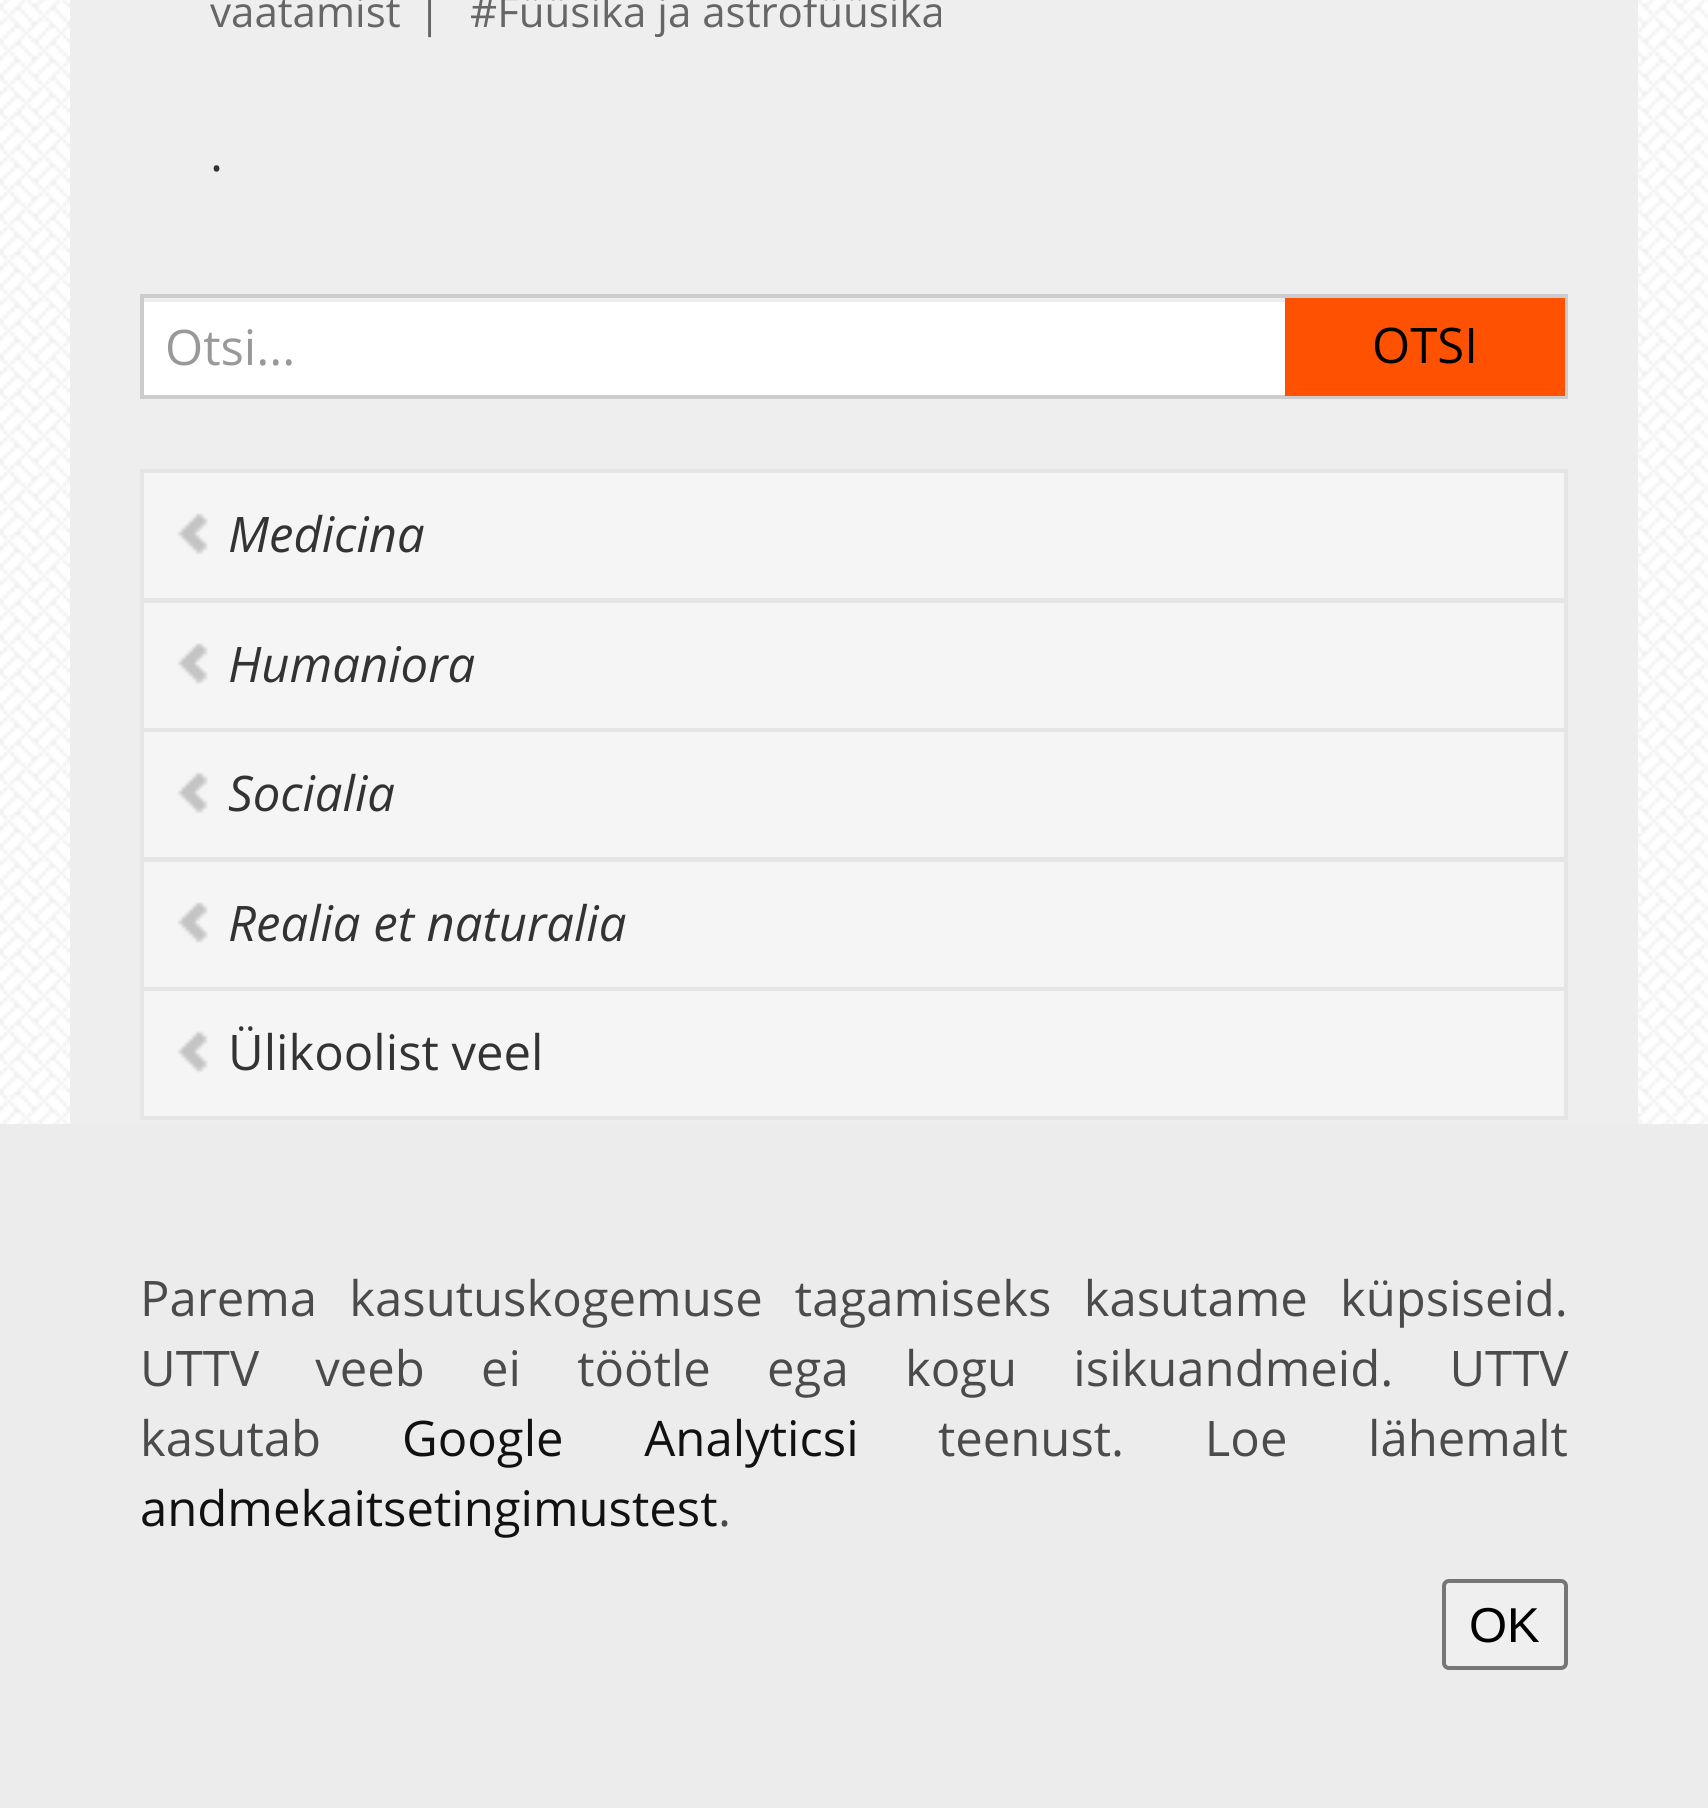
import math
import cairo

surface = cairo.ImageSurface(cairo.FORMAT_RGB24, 1708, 1808)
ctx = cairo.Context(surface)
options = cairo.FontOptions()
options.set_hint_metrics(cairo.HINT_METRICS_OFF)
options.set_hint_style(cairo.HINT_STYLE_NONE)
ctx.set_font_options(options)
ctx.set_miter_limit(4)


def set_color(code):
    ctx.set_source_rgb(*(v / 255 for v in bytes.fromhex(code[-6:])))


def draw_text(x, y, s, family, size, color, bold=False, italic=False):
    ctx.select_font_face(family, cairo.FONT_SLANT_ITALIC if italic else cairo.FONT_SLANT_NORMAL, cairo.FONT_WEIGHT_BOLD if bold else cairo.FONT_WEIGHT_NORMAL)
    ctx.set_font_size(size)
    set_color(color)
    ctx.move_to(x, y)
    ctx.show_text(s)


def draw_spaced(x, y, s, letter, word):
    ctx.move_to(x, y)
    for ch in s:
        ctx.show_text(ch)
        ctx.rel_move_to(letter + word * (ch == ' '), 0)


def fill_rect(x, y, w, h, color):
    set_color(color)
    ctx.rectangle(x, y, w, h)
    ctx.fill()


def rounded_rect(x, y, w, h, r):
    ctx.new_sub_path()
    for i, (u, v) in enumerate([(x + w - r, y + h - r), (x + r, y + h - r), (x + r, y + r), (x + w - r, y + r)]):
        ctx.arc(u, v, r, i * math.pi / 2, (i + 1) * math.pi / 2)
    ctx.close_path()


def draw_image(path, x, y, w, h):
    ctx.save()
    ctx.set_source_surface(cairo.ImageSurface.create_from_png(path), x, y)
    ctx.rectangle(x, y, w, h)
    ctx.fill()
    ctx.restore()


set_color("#ffffff")
ctx.paint()
draw_image("assets/img1.png", 0, 0, 1708, 1124)
fill_rect(70, 0, 1568, 1124, "#eeeeee")
draw_text(210, 27, "vaatamist", "Open Sans", 42, "#666666")
draw_text(418, 27, "|", "Open Sans", 42, "#666666")
draw_text(470, 27, "#Füüsika ja astrofüüsika", "Open Sans", 42, "#666666")
draw_text(210, 171, ".", "Open Sans", 49, "#333333")
fill_rect(144, 302, 1141, 93, "#ffffff")
ctx.rectangle(142, 296, 1424, 101)
set_color("#cccccc")
ctx.set_line_width(4)
ctx.stroke()
draw_text(165, 365, "Otsi...", "Open Sans", 49, "#999999")
fill_rect(1285, 298, 280, 98, "#fe5102")
draw_text(1372, 363, "OTSI", "Open Sans", 49, "#000000")
fill_rect(144, 473, 1420, 643, "#f5f5f5")
ctx.rectangle(142, 471, 1424, 129)
set_color("#e5e5e5")
ctx.stroke()
draw_image("assets/img2.png", 177, 513, 31, 42)
draw_text(228, 552, "Medicina", "Open Sans", 49, "#333333", italic=True)
ctx.rectangle(142, 601, 1424, 129)
set_color("#e5e5e5")
ctx.stroke()
draw_image("assets/img3.png", 177, 643, 31, 41)
draw_text(228, 682, "Humaniora", "Open Sans", 49, "#333333", italic=True)
ctx.rectangle(142, 730, 1424, 129)
set_color("#e5e5e5")
ctx.stroke()
draw_image("assets/img2.png", 177, 772, 31, 42)
draw_text(228, 811, "Socialia", "Open Sans", 49, "#333333", italic=True)
ctx.rectangle(142, 860, 1424, 129)
set_color("#e5e5e5")
ctx.stroke()
draw_image("assets/img3.png", 177, 902, 31, 41)
draw_text(228, 941, "Realia et naturalia", "Open Sans", 49, "#333333", italic=True)
ctx.rectangle(142, 989, 1424, 129)
set_color("#e5e5e5")
ctx.stroke()
draw_image("assets/img2.png", 177, 1031, 31, 42)
draw_text(228, 1070, "Ülikoolist veel", "Open Sans", 49, "#333333")
fill_rect(0, 1124, 1708, 684, "#ececec")
set_color("#4b4b4b")
draw_spaced(140, 1316, "Parema kasutuskogemuse tagamiseks kasutame küpsiseid.", 0, 19.5)
draw_spaced(140, 1386, "UTTV veeb ei töötle ega kogu isikuandmeid. UTTV", 0, 43.5)
draw_text(140, 1456, "kasutab", "Open Sans", 49, "#4b4b4b")
set_color("#111111")
draw_spaced(402, 1456, "Google Analyticsi", 0, 68)
set_color("#4b4b4b")
draw_spaced(938, 1456, "teenust. Loe lähemalt", 0, 68)
draw_text(140, 1526, "andmekaitsetingimustest", "Open Sans", 49, "#111111")
draw_text(718, 1526, ".", "Open Sans", 49, "#4b4b4b")
set_color("#efefef")
rounded_rect(1444, 1581, 122, 87, 5)
ctx.fill_preserve()
set_color("#767676")
ctx.stroke()
draw_text(1469, 1642, "OK", "Liberation Sans", 49, "#000000")
surface.write_to_png("output.png")
